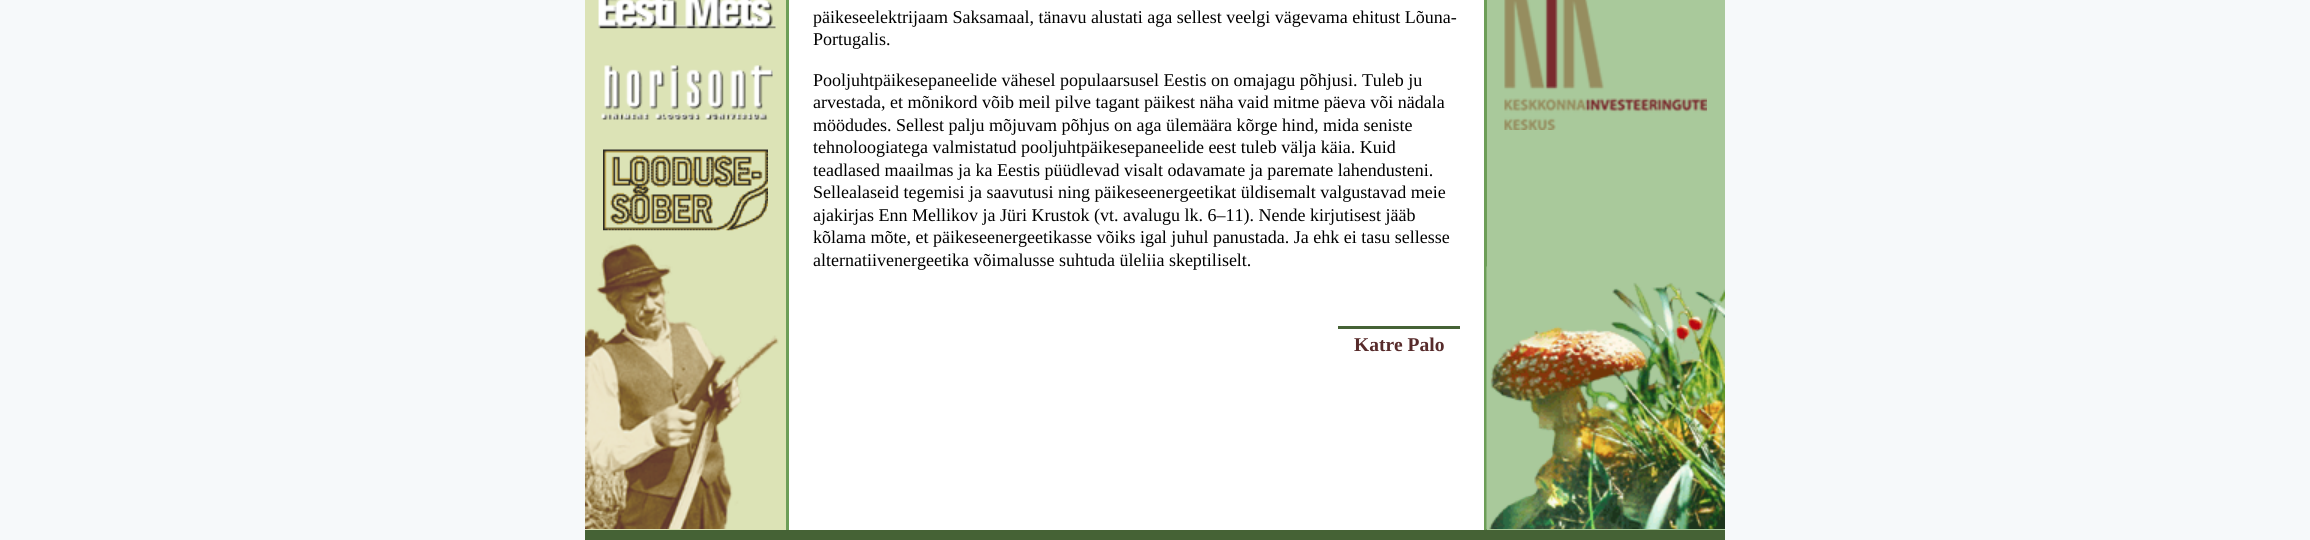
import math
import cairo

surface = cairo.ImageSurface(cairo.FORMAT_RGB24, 2310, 540)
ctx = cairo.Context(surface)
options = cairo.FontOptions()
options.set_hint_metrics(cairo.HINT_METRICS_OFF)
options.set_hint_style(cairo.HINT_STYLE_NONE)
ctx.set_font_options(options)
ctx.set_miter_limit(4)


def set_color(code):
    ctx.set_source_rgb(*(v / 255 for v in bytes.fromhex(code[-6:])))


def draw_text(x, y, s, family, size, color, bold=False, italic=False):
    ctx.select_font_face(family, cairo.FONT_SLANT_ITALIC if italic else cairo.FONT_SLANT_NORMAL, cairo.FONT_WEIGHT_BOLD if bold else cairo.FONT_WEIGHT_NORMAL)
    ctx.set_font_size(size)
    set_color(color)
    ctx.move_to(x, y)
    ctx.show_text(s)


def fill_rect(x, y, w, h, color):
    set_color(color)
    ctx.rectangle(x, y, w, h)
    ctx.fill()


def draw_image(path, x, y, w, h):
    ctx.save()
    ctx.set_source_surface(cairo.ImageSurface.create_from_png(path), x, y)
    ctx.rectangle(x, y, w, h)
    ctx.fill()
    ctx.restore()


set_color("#f6f9fa")
ctx.paint()
fill_rect(585, 0, 201, 530, "#dce3b6")
draw_image("assets/img1.png", 598, 0, 178, 29)
draw_image("assets/img2.png", 601, 65, 172, 55)
draw_image("assets/img3.png", 603, 149, 165, 82)
fill_rect(786, 0, 3, 530, "#6d9e58")
fill_rect(789, 0, 695, 530, "#ffffff")
draw_text(813, 23, "päikeseelektrijaam Saksamaal, tänavu alustati aga sellest veelgi vägevama ehitust Lõuna-", "Liberation Serif", 18, "#000000")
draw_text(813, 45, "Portugalis.", "Liberation Serif", 18, "#000000")
draw_text(813, 86, "Pooljuhtpäikesepaneelide vähesel populaarsusel Eestis on omajagu põhjusi. Tuleb ju", "Liberation Serif", 18, "#000000")
draw_text(813, 108, "arvestada, et mõnikord võib meil pilve tagant päikest näha vaid mitme päeva või nädala", "Liberation Serif", 18, "#000000")
draw_text(813, 131, "möödudes. Sellest palju mõjuvam põhjus on aga ülemäära kõrge hind, mida seniste", "Liberation Serif", 18, "#000000")
draw_text(813, 153, "tehnoloogiatega valmistatud pooljuhtpäikesepaneelide eest tuleb välja käia. Kuid", "Liberation Serif", 18, "#000000")
draw_text(813, 176, "teadlased maailmas ja ka Eestis püüdlevad visalt odavamate ja paremate lahendusteni.", "Liberation Serif", 18, "#000000")
draw_text(813, 198, "Sellealaseid tegemisi ja saavutusi ning päikeseenergeetikat üldisemalt valgustavad meie", "Liberation Serif", 18, "#000000")
draw_text(813, 221, "ajakirjas Enn Mellikov ja Jüri Krustok (vt. avalugu lk. 6–11). Nende kirjutisest jääb", "Liberation Serif", 18, "#000000")
draw_text(813, 243, "kõlama mõte, et päikeseenergeetikasse võiks igal juhul panustada. Ja ehk ei tasu sellesse", "Liberation Serif", 18, "#000000")
draw_text(813, 266, "alternatiivenergeetika võimalusse suhtuda üleliia skeptiliselt.", "Liberation Serif", 18, "#000000")
fill_rect(1338, 326, 122, 3, "#456235")
draw_text(1354, 351, "Katre Palo", "Liberation Serif", 19.5, "#572b2b", bold=True)
fill_rect(1484, 0, 3, 530, "#6d9e58")
fill_rect(1487, 0, 238, 530, "#a9c99b")
draw_image("assets/img4.png", 1504, 0, 203, 130)
draw_image("assets/img5.png", 585, 230, 194, 299)
draw_image("assets/img6.png", 1486, 266, 239, 263)
fill_rect(585, 530, 1140, 10, "#456235")
surface.write_to_png("output.png")
